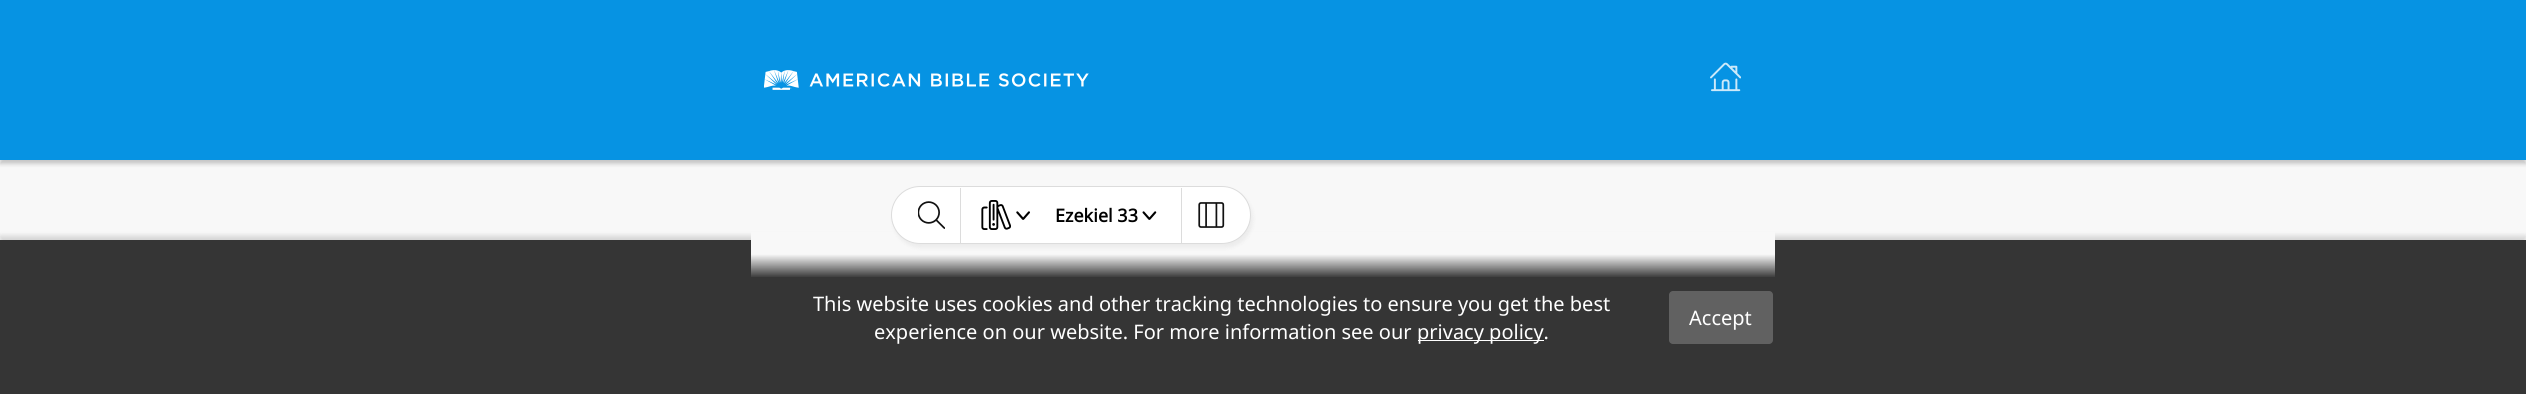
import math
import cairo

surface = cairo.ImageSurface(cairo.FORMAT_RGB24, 2526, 394)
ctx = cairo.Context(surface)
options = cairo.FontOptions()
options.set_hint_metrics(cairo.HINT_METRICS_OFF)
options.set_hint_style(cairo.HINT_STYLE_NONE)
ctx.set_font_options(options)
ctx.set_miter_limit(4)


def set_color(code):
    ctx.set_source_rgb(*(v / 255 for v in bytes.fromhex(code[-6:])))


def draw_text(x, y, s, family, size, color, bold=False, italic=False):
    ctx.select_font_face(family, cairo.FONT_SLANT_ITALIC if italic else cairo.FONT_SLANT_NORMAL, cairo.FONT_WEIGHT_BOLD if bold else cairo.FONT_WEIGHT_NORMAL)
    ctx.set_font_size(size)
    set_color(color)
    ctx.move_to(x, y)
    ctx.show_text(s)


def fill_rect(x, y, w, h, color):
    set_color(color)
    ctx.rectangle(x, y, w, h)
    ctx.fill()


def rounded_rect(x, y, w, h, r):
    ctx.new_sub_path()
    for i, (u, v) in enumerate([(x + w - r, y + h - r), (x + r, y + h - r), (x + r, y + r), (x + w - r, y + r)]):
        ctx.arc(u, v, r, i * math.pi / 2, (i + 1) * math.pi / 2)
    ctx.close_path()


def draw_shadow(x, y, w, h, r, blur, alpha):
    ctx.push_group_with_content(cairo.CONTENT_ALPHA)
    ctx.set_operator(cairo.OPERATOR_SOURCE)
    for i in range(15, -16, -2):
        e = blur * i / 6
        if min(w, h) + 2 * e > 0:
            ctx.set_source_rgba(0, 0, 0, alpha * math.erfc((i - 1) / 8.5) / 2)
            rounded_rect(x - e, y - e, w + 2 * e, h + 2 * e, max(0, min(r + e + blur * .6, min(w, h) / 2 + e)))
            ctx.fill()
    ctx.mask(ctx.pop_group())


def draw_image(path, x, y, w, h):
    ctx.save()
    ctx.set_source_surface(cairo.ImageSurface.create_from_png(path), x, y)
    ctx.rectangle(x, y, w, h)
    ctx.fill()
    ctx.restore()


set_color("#f8f8f8")
ctx.paint()
set_color("#000000")
draw_shadow(0, 4, 2526, 160, 0, 2, 0.2)
fill_rect(0, 0, 2526, 160, "#0693e3")
draw_image("assets/img1.png", 764, 70, 325, 20)
draw_image("assets/img2.png", 1710, 62, 31, 30)
set_color("#000000")
draw_shadow(0, 236, 2526, 155, 0, 2.5, 0.15)
fill_rect(0, 240, 2526, 154, "#353535")
gradient = cairo.LinearGradient(1263, 170, 1263, 278)
gradient.add_color_stop_rgba(0.78, 0.973, 0.973, 0.973, 1)
gradient.add_color_stop_rgba(1, 0.973, 0.973, 0.973, 0)
ctx.set_source(gradient)
ctx.rectangle(751, 232, 1024, 45)
ctx.fill()
set_color("#000000")
draw_shadow(893, 190, 360, 58, 29, 2, 0.05)
set_color("#ffffff")
rounded_rect(891.5, 186.5, 359, 57, 28.5)
ctx.fill_preserve()
set_color("#dcdcdc")
ctx.set_line_width(1)
ctx.stroke()
fill_rect(960, 188, 1, 55, "#dcdcdc")
draw_image("assets/img3.png", 918, 201, 27, 28)
draw_image("assets/img4.png", 981, 200, 30, 30)
draw_image("assets/img5.png", 1016, 211, 14, 9)
draw_text(1055, 222, "Ezekiel 33", "Noto Sans", 18, "#000000", bold=True)
draw_image("assets/img6.png", 1142, 211, 15, 9)
fill_rect(1181, 188, 1, 55, "#dcdcdc")
draw_image("assets/img7.png", 1198, 202, 27, 26)
draw_text(813, 311, "This website uses cookies and other tracking technologies to ensure you get the best", "Noto Sans", 20, "#ffffff")
draw_text(874, 339, "experience on our website. For more information see our", "Noto Sans", 20, "#ffffff")
fill_rect(1418, 340, 126, 1, "#ffffff")
draw_text(1417, 339, "privacy policy.", "Noto Sans", 20, "#ffffff")
set_color("#616161")
rounded_rect(1669, 291, 104, 53, 4)
ctx.fill()
draw_text(1689, 325, "Accept", "Noto Sans", 20, "#ffffff")
surface.write_to_png("output.png")
